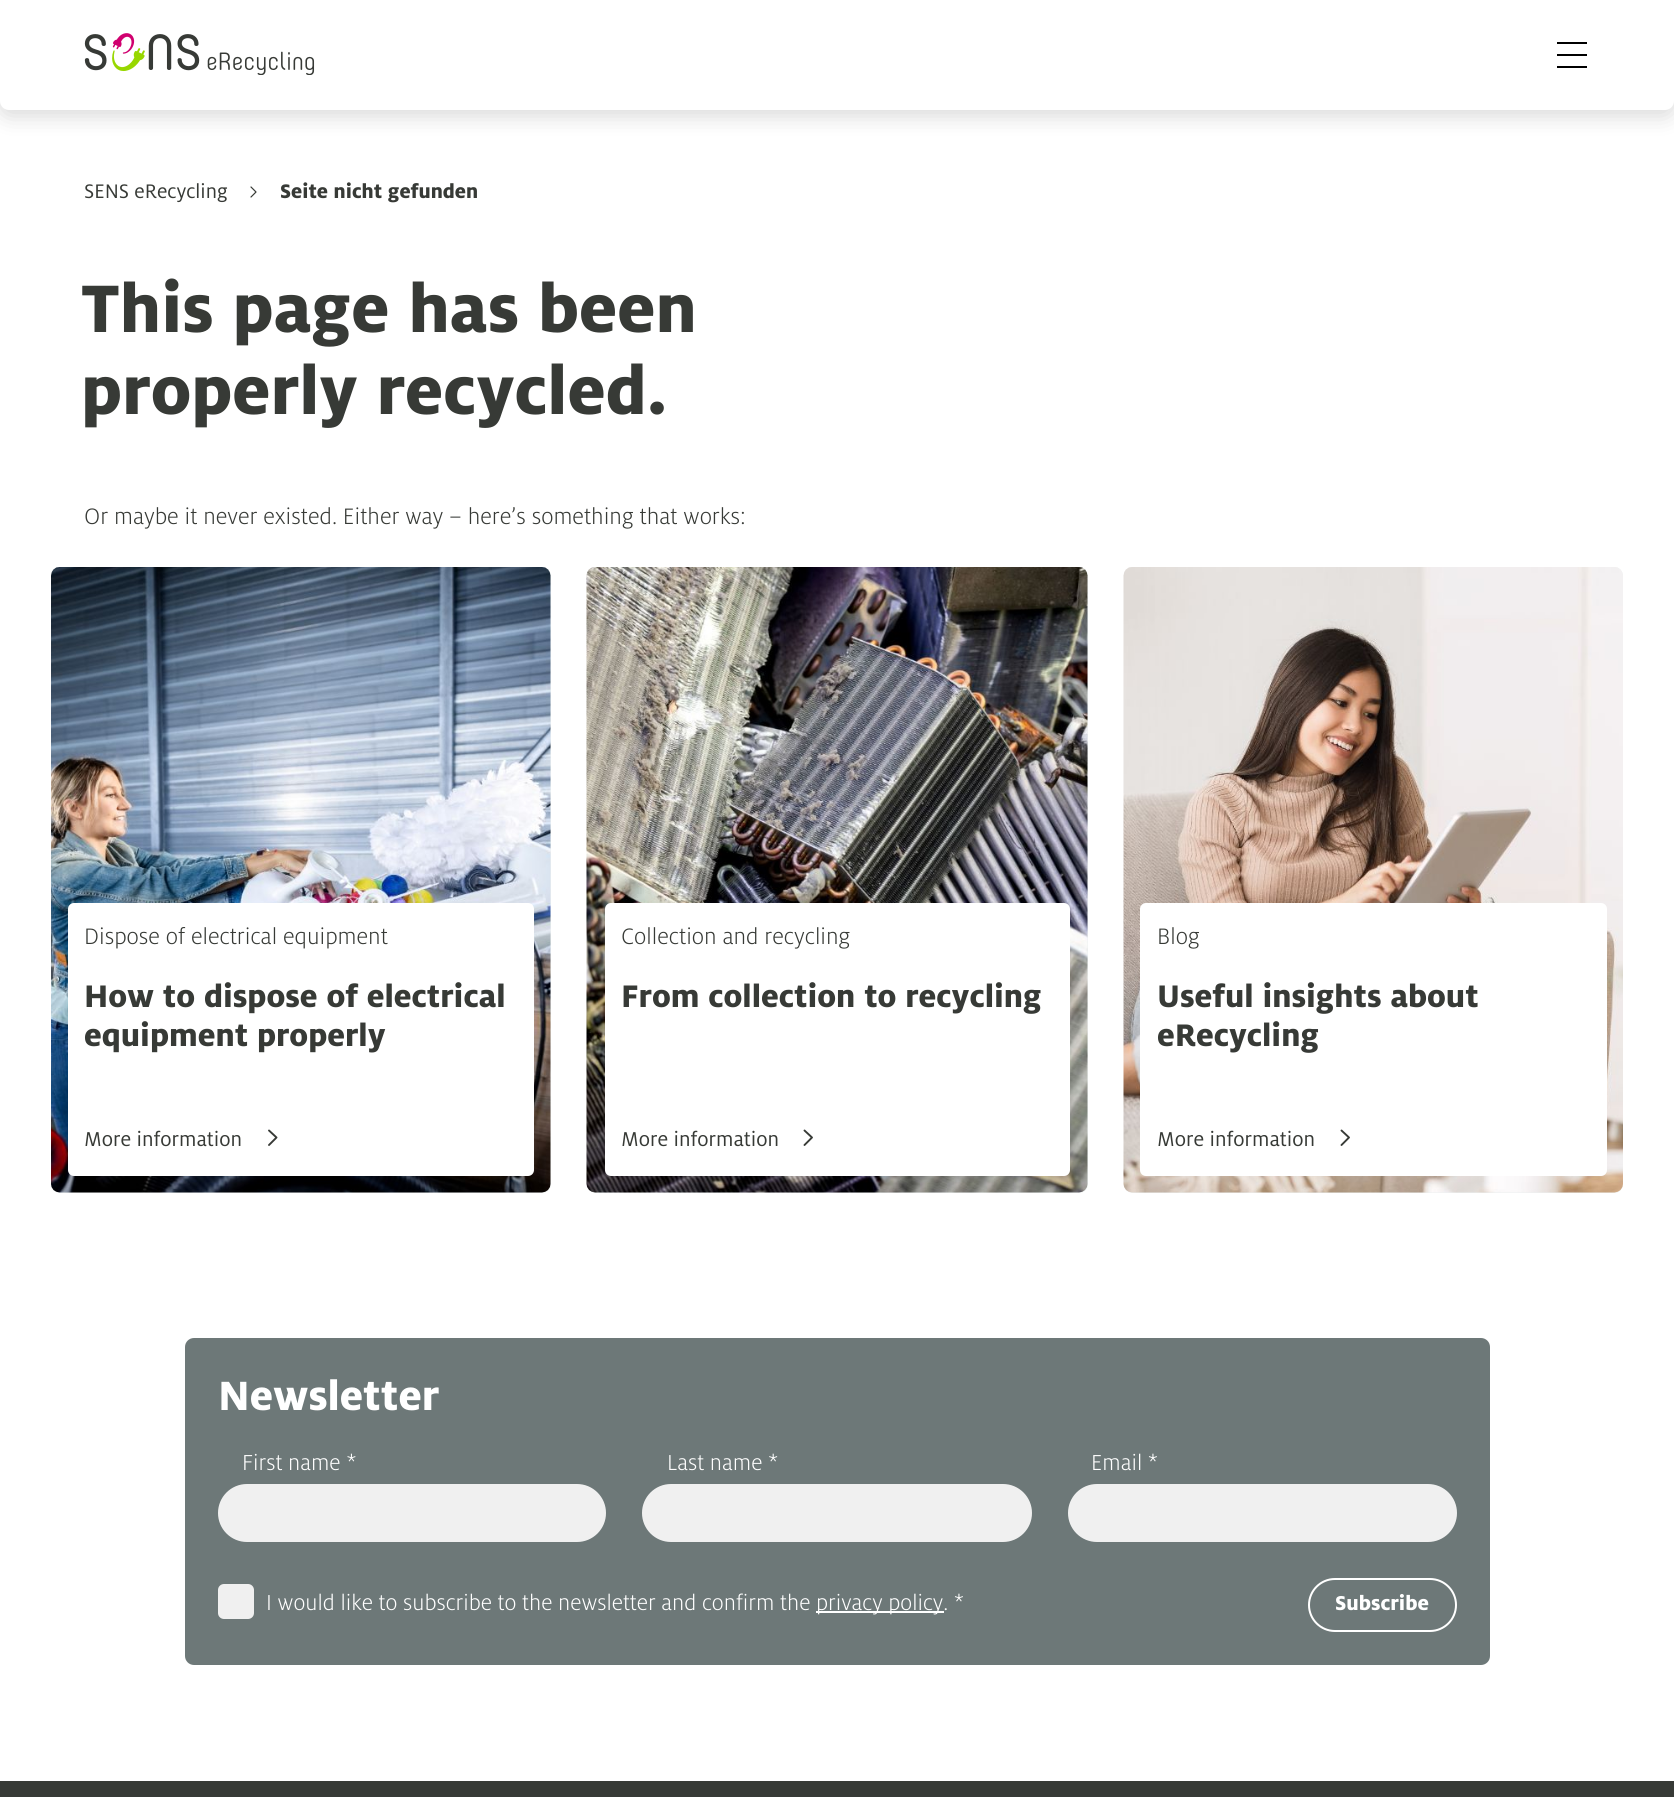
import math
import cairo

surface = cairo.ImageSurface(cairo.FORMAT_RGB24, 1674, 1797)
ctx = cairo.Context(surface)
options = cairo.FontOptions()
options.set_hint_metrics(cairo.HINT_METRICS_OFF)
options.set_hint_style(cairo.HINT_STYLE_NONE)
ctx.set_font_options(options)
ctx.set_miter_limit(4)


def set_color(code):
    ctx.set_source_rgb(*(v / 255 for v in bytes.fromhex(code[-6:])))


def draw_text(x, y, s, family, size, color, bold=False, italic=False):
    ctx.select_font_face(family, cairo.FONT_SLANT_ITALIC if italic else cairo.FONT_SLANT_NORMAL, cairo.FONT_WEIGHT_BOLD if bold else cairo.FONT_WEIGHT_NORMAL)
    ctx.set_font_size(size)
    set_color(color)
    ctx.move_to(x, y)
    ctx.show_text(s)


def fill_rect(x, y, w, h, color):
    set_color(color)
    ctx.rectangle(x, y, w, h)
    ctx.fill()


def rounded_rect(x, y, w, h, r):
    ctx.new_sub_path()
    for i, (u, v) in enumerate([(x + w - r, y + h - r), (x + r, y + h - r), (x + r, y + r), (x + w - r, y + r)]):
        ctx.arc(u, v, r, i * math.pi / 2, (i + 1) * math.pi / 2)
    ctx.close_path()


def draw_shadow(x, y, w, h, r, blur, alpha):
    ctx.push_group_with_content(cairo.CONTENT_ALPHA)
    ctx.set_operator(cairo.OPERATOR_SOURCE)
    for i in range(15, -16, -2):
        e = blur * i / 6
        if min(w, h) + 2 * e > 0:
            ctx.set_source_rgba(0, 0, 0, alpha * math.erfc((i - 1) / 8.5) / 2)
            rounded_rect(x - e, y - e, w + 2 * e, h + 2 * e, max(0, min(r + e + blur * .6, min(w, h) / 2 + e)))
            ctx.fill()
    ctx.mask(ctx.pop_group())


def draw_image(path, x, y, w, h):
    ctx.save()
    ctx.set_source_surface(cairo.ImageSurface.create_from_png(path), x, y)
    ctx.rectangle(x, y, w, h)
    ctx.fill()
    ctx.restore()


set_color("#ffffff")
ctx.paint()
set_color("#000000")
draw_shadow(0, 6, 1674, 110, 9, 11, 0.15)
set_color("#ffffff")
ctx.new_path()
ctx.move_to(0, 0)
ctx.line_to(1674, 0)
ctx.line_to(1674, 101)
ctx.curve_to(1674, 106, 1670, 110, 1665, 110)
ctx.line_to(9, 110)
ctx.curve_to(4, 110, 0, 106, 0, 101)
ctx.close_path()
ctx.fill()
draw_image("assets/img1.png", 84, 33, 231, 42)
fill_rect(1557, 54, 30, 2, "#000000")
fill_rect(1557, 42, 30, 2, "#000000")
fill_rect(1557, 66, 30, 2, "#000000")
draw_text(84, 198, "SENS eRecycling", "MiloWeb", 21.75, "#373a36")
ctx.new_path()
ctx.move_to(251, 197)
ctx.line_to(256, 192)
ctx.line_to(251, 187)
ctx.set_line_width(1.2)
ctx.set_line_cap(cairo.LINE_CAP_ROUND)
ctx.set_line_join(cairo.LINE_JOIN_ROUND)
ctx.stroke()
draw_text(280, 198, "Seite nicht gefunden", "MiloWeb", 21.75, "#373a36", bold=True)
draw_text(81, 332, "This page has been", "MiloWeb", 74.25, "#373a36", bold=True)
draw_text(81, 414, "properly recycled.", "MiloWeb", 74.25, "#373a36", bold=True)
draw_text(84, 524, "Or maybe it never existed. Either way – here’s something that works:", "MiloWeb Light", 24.75, "#373a36")
set_color("#ecf1f0")
rounded_rect(51, 567, 500, 626, 9)
ctx.fill()
draw_image("assets/img2.png", 51, 567, 500, 626)
set_color("#ffffff")
rounded_rect(68, 903, 466, 273, 6)
ctx.fill()
draw_text(84, 944, "Dispose of electrical equipment", "MiloWeb Light", 24.75, "#373a36")
draw_text(84, 1007, "How to dispose of electrical", "MiloWeb", 34.5, "#373a36", bold=True)
draw_text(84, 1046, "equipment properly", "MiloWeb", 34.5, "#373a36", bold=True)
draw_text(84, 1146, "More information", "MiloWeb", 22.25, "#373a36")
ctx.new_path()
ctx.move_to(269, 1145)
ctx.line_to(276.5, 1137.5)
ctx.line_to(269, 1130.5)
ctx.set_line_width(1.9)
ctx.stroke()
set_color("#ecf1f0")
rounded_rect(587, 567, 501, 626, 9)
ctx.fill()
draw_image("assets/img3.png", 586, 567, 502, 626)
set_color("#ffffff")
rounded_rect(605, 903, 465, 273, 6)
ctx.fill()
draw_text(621, 944, "Collection and recycling", "MiloWeb Light", 24.75, "#373a36")
draw_text(621, 1007, "From collection to recycling", "MiloWeb", 34.5, "#373a36", bold=True)
draw_text(621, 1146, "More information", "MiloWeb", 22.25, "#373a36")
ctx.new_path()
ctx.move_to(804.5, 1145)
ctx.line_to(812, 1137.5)
ctx.line_to(804.5, 1130.5)
ctx.stroke()
set_color("#ecf1f0")
rounded_rect(1124, 567, 499, 626, 9)
ctx.fill()
draw_image("assets/img4.png", 1123, 567, 500, 626)
set_color("#ffffff")
rounded_rect(1140, 903, 467, 273, 6)
ctx.fill()
draw_text(1157, 944, "Blog", "MiloWeb Light", 24.75, "#373a36")
draw_text(1157, 1007, "Useful insights about", "MiloWeb", 34.5, "#373a36", bold=True)
draw_text(1157, 1046, "eRecycling", "MiloWeb", 34.5, "#373a36", bold=True)
draw_text(1157, 1146, "More information", "MiloWeb", 22.25, "#373a36")
ctx.new_path()
ctx.move_to(1341.5, 1145)
ctx.line_to(1349, 1137.5)
ctx.line_to(1341.5, 1130.5)
ctx.stroke()
set_color("#6d7878")
rounded_rect(185, 1338, 1305, 327, 9)
ctx.fill()
draw_text(218, 1410, "Newsletter", "MiloWeb", 45.25, "#ffffff", bold=True)
draw_text(242, 1470, "First name *", "MiloWeb Light", 24, "#ffffff")
set_color("#f0f0f0")
rounded_rect(219, 1485, 386, 56, 28)
ctx.fill_preserve()
ctx.set_line_width(2)
ctx.set_line_cap(cairo.LINE_CAP_BUTT)
ctx.set_line_join(cairo.LINE_JOIN_MITER)
ctx.stroke()
draw_text(667, 1470, "Last name *", "MiloWeb Light", 24, "#ffffff")
set_color("#f0f0f0")
rounded_rect(643, 1485, 388, 56, 28)
ctx.fill_preserve()
ctx.stroke()
draw_text(1091, 1470, "Email *", "MiloWeb Light", 24, "#ffffff")
set_color("#f0f0f0")
rounded_rect(1069, 1485, 387, 56, 28)
ctx.fill_preserve()
ctx.stroke()
rounded_rect(218, 1584, 36, 35, 6)
ctx.fill()
draw_text(266, 1610, "I would like to subscribe to the newsletter and confirm the", "MiloWeb Light", 24, "#ffffff")
fill_rect(816, 1611, 128, 2, "#ffffff")
draw_text(816, 1610, "privacy policy. *", "MiloWeb Light", 24, "#ffffff")
rounded_rect(1309, 1579, 147, 52, 26)
ctx.stroke()
draw_text(1335, 1610, "Subscribe", "MiloWeb", 22.25, "#ffffff", bold=True)
fill_rect(0, 1781, 1674, 16, "#373a36")
surface.write_to_png("output.png")
